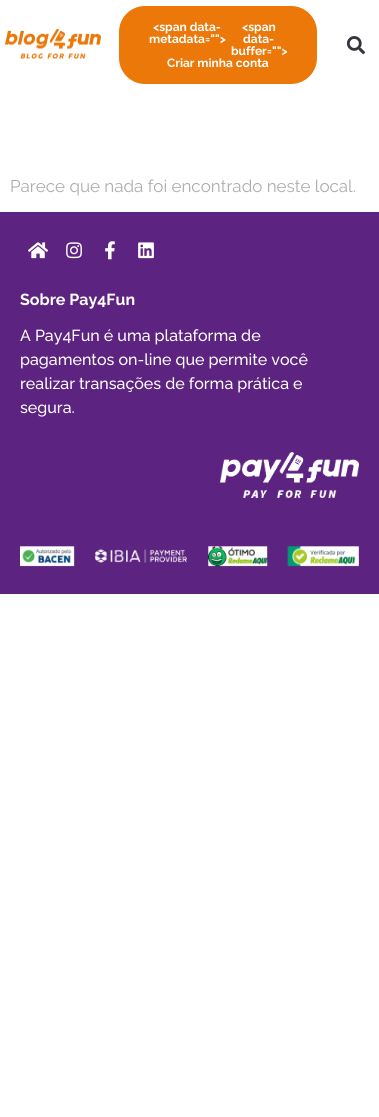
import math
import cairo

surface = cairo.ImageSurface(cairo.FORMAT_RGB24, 379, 1117)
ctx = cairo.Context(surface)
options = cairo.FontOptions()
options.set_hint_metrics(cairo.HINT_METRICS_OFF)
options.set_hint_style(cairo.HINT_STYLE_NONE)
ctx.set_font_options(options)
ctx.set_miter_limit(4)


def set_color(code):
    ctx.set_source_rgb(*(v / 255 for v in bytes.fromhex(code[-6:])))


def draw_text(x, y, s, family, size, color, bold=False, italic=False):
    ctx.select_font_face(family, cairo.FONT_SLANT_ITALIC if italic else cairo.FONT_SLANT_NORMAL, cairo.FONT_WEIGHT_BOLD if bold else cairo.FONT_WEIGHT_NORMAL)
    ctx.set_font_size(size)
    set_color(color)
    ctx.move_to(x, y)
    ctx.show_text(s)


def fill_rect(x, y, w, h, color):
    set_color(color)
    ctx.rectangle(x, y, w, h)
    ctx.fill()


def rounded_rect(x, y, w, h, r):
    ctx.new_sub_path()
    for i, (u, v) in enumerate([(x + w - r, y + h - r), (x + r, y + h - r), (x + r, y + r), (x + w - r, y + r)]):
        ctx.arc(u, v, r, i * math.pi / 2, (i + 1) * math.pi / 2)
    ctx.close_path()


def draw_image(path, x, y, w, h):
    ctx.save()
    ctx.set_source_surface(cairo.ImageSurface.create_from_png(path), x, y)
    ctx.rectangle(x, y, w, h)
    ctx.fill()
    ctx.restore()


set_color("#ffffff")
ctx.paint()
draw_image("assets/img1.png", 5, 29, 96, 31)
set_color("#ec780a")
rounded_rect(119, 6, 198, 78, 26)
ctx.fill()
draw_text(153, 31, "<span data-", "Raleway", 12, "#ffffff", bold=True)
draw_text(149, 43, "metadata=\"\">", "Raleway", 12, "#ffffff", bold=True)
draw_text(242, 31, "<span", "Raleway", 12, "#ffffff", bold=True)
draw_text(243, 43, "data-", "Raleway", 12, "#ffffff", bold=True)
draw_text(231, 55, "buffer=\"\">", "Raleway", 12, "#ffffff", bold=True)
draw_text(167, 67, "Criar minha conta", "Raleway", 12, "#ffffff", bold=True)
draw_image("assets/img2.png", 346, 36, 19, 19)
draw_text(10, 192, "Parece que nada foi encontrado neste local.", "Raleway", 17, "#adadad")
fill_rect(0, 212, 379, 382, "#5d2380")
draw_image("assets/img3.png", 28, 242, 21, 17)
draw_image("assets/img4.png", 66, 242, 16, 17)
draw_image("assets/img5.png", 105, 241, 10, 19)
draw_image("assets/img6.png", 138, 242, 16, 17)
draw_text(20, 305, "Sobre Pay4Fun", "Raleway", 16, "#ffffff", bold=True)
draw_text(20, 341, "A Pay4Fun é uma plataforma de", "Raleway Medium", 16, "#ffffff")
draw_text(20, 365, "pagamentos on-line que permite você", "Raleway Medium", 16, "#ffffff")
draw_text(20, 389, "realizar transações de forma prática e", "Raleway Medium", 16, "#ffffff")
draw_text(20, 413, "segura.", "Raleway Medium", 16, "#ffffff")
draw_image("assets/img7.png", 220, 452, 139, 46)
draw_image("assets/img8.png", 20, 546, 339, 21)
surface.write_to_png("output.png")
